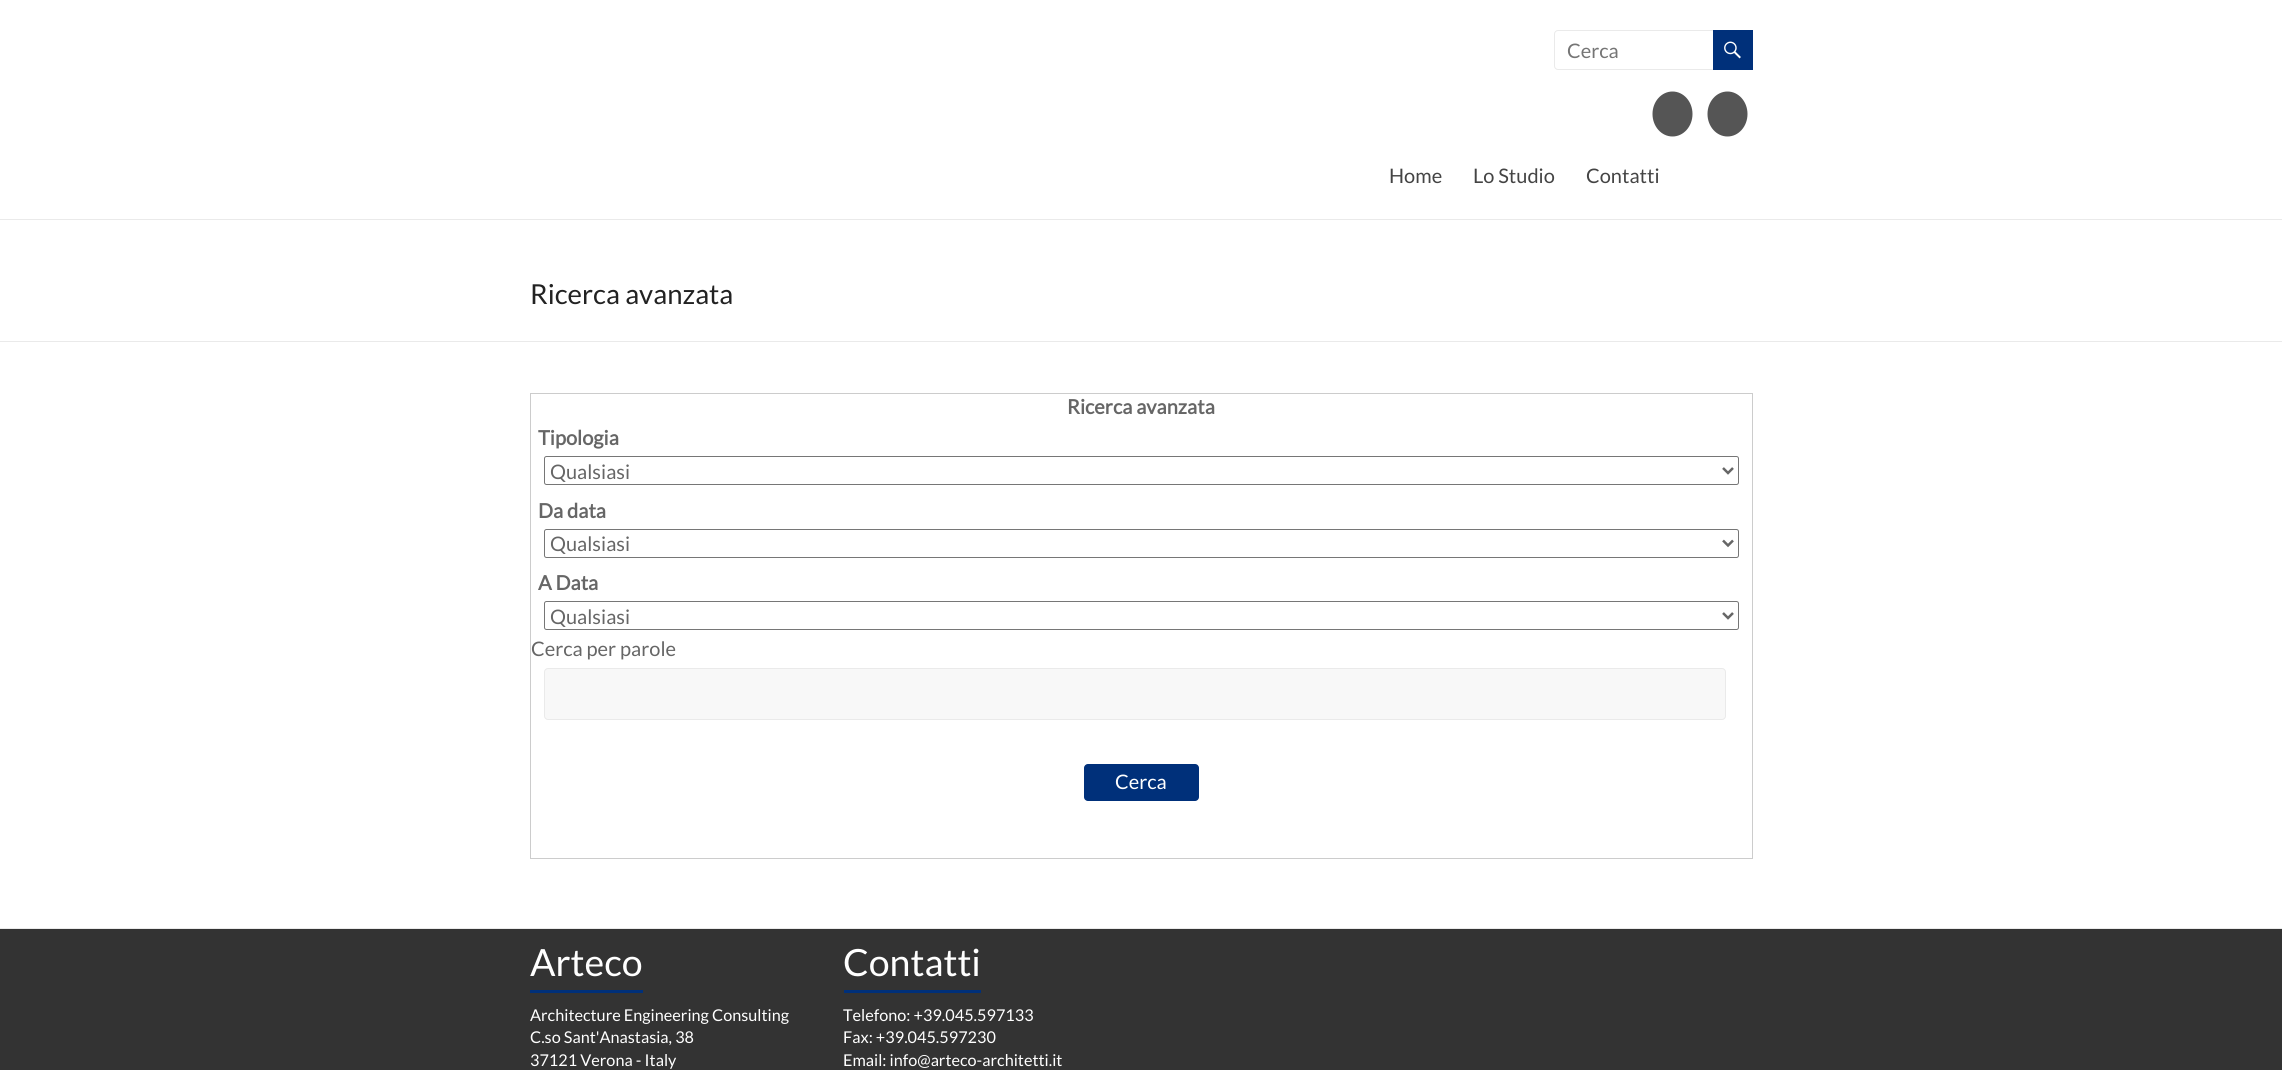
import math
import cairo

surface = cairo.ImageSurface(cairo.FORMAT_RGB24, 2282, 1070)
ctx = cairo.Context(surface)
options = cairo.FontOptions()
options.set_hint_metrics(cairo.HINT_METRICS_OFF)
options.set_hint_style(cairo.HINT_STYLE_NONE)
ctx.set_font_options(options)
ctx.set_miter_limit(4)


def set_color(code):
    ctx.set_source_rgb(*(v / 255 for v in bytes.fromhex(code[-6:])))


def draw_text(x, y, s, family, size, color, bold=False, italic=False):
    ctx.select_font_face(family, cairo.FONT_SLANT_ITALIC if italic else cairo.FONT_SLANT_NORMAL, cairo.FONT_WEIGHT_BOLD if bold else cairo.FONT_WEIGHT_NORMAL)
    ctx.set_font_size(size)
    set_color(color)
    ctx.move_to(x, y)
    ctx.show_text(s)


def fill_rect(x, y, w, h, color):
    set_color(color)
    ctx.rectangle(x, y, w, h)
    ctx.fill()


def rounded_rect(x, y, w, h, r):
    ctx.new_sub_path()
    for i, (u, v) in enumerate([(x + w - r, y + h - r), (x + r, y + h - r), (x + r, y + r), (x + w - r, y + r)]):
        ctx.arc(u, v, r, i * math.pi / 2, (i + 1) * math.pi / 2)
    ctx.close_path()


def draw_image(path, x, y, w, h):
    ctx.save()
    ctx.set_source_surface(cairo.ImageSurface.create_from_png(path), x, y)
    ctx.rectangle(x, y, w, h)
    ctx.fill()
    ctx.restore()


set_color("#ffffff")
ctx.paint()
fill_rect(0, 219, 2282, 1, "#eaeaea")
rounded_rect(1554.5, 30.5, 161, 39, 3.5)
ctx.set_line_width(1)
ctx.stroke()
draw_text(1567, 58, "Cerca", "Lato", 20, "#757575")
fill_rect(1713, 30, 40, 40, "#00307a")
draw_image("assets/img1.png", 1724, 41, 17, 18)
set_color("#555555")
ctx.new_path()
ctx.move_to(1672.5, 91.5)
ctx.curve_to(1683.5, 91.5, 1692.5, 101.5, 1692.5, 114)
ctx.curve_to(1692.5, 126.5, 1683.5, 136.5, 1672.5, 136.5)
ctx.curve_to(1661.5, 136.5, 1652.5, 126.5, 1652.5, 114)
ctx.curve_to(1652.5, 101.5, 1661.5, 91.5, 1672.5, 91.5)
ctx.close_path()
ctx.fill()
ctx.new_path()
ctx.move_to(1727.5, 91.5)
ctx.curve_to(1738.5, 91.5, 1747.5, 101.5, 1747.5, 114)
ctx.curve_to(1747.5, 126.5, 1738.5, 136.5, 1727.5, 136.5)
ctx.curve_to(1716.5, 136.5, 1707.5, 126.5, 1707.5, 114)
ctx.curve_to(1707.5, 101.5, 1716.5, 91.5, 1727.5, 91.5)
ctx.close_path()
ctx.fill()
draw_text(1389, 183, "Home", "Lato", 20, "#444444")
draw_text(1473, 183, "Lo Studio", "Lato", 20, "#444444")
draw_text(1586, 183, "Contatti", "Lato", 20, "#444444")
fill_rect(0, 341, 2282, 1, "#eaeaea")
draw_text(530, 304, "Ricerca avanzata", "Lato", 27.5, "#222222")
ctx.rectangle(530.5, 393.5, 1222, 465)
set_color("#cccccc")
ctx.stroke()
draw_text(1067, 414, "Ricerca avanzata", "Lato", 20, "#666666", bold=True)
draw_text(538, 445, "Tipologia", "Lato", 20, "#666666", bold=True)
rounded_rect(544.5, 456.5, 1194, 28, 2)
set_color("#767676")
ctx.stroke()
ctx.new_path()
ctx.move_to(1723, 468)
ctx.line_to(1728, 473)
ctx.line_to(1733, 468)
set_color("#666666")
ctx.set_line_width(2.5)
ctx.stroke()
draw_text(550, 479, "Qualsiasi", "Lato", 20, "#666666")
draw_text(538, 518, "Da data", "Lato", 20, "#666666", bold=True)
rounded_rect(544.5, 529.5, 1194, 28, 2)
set_color("#767676")
ctx.set_line_width(1)
ctx.stroke()
ctx.new_path()
ctx.move_to(1723, 540.5)
ctx.line_to(1728, 545.5)
ctx.line_to(1733, 540.5)
set_color("#666666")
ctx.set_line_width(2.5)
ctx.stroke()
draw_text(550, 551, "Qualsiasi", "Lato", 20, "#666666")
draw_text(538, 590, "A Data", "Lato", 20, "#666666", bold=True)
rounded_rect(544.5, 601.5, 1194, 28, 2)
set_color("#767676")
ctx.set_line_width(1)
ctx.stroke()
ctx.new_path()
ctx.move_to(1723, 613)
ctx.line_to(1728, 618)
ctx.line_to(1733, 613)
set_color("#666666")
ctx.set_line_width(2.5)
ctx.stroke()
draw_text(550, 624, "Qualsiasi", "Lato", 20, "#666666")
draw_text(531, 656, "Cerca per parole", "Lato", 20, "#666666")
set_color("#f8f8f8")
rounded_rect(544.5, 668.5, 1181, 51, 3.5)
ctx.fill_preserve()
set_color("#eaeaea")
ctx.set_line_width(1)
ctx.stroke()
set_color("#00307a")
rounded_rect(1084, 764, 115, 37, 4)
ctx.fill()
draw_text(1115, 789, "Cerca", "Lato", 20, "#ffffff")
fill_rect(0, 929, 2282, 141, "#333333")
fill_rect(0, 928, 2282, 1, "#eaeaea")
draw_text(530, 976, "Arteco", "Lato", 37.5, "#ffffff")
fill_rect(530, 990, 113, 3, "#00307a")
draw_text(530, 1021, "Architecture Engineering Consulting", "Lato", 16.25, "#ffffff")
draw_text(530, 1043, "C.so Sant'Anastasia, 38", "Lato", 16.25, "#ffffff")
draw_text(530, 1066, "37121 Verona - Italy", "Lato", 16.25, "#ffffff")
draw_text(843, 976, "Contatti", "Lato", 37.5, "#ffffff")
fill_rect(844, 990, 137, 3, "#00307a")
draw_text(843, 1021, "Telefono: +39.045.597133", "Lato", 16.25, "#ffffff")
draw_text(843, 1043, "Fax: +39.045.597230", "Lato", 16.25, "#ffffff")
draw_text(843, 1066, "Email: info@arteco-architetti.it", "Lato", 16.25, "#ffffff")
surface.write_to_png("output.png")
